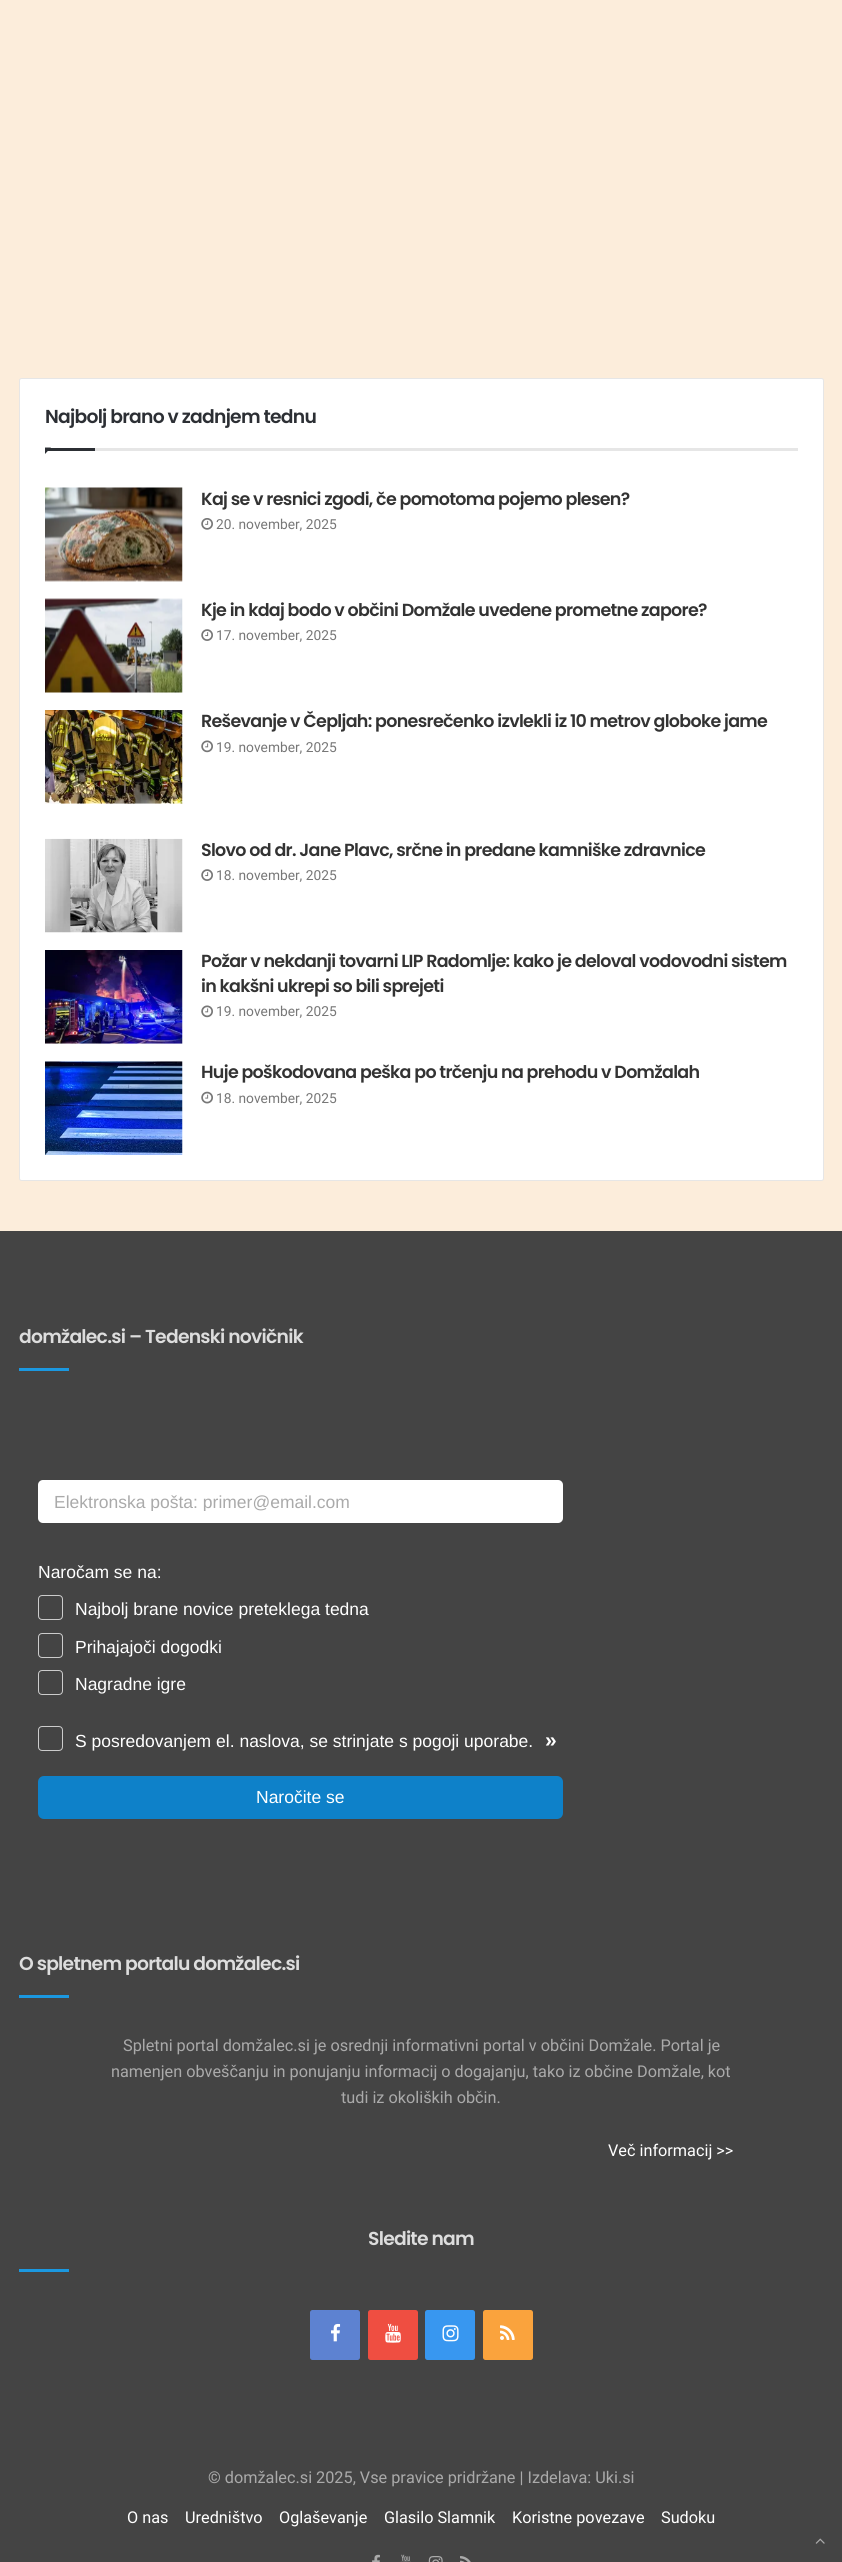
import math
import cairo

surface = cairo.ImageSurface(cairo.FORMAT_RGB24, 842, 2562)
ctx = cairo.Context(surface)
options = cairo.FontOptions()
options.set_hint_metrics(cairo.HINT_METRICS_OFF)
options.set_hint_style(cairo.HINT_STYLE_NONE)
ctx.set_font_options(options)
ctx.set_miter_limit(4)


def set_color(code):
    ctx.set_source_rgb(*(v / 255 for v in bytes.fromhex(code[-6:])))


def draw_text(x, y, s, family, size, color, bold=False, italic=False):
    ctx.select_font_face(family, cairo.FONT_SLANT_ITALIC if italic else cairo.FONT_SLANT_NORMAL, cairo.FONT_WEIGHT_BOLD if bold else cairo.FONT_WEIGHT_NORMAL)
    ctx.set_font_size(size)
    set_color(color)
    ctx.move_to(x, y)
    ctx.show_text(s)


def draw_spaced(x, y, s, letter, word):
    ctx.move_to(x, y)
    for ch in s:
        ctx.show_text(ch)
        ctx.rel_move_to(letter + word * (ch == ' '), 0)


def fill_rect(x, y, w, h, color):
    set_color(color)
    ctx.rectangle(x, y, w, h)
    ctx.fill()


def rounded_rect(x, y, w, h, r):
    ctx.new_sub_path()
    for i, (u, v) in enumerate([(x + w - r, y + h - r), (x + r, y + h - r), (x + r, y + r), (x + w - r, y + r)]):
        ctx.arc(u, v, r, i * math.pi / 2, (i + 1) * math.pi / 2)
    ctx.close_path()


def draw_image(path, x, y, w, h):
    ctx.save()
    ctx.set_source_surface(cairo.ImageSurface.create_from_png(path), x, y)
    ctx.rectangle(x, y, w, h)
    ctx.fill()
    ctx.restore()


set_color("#fceddb")
ctx.paint()
set_color("#ffffff")
rounded_rect(19, 378, 805, 803, 2.5)
ctx.fill()
rounded_rect(19.5, 378.5, 804, 802, 2)
ctx.set_source_rgba(0, 0, 0, 0.1)
ctx.set_line_width(1)
ctx.stroke()
fill_rect(95, 448, 703, 3, "#e6e6e6")
ctx.select_font_face("Poppins SemiBold")
ctx.set_font_size(18.75)
set_color("#2c2f34")
draw_spaced(45, 423, "Najbolj brano v zadnjem tednu", -0.75, 0)
ctx.new_path()
ctx.move_to(45, 447.5)
ctx.line_to(51, 447.5)
ctx.line_to(45, 454)
ctx.close_path()
ctx.fill()
fill_rect(45, 448, 50, 3, "#2c2f34")
draw_image("assets/img1.png", 45, 487, 138, 95)
ctx.set_font_size(17.5)
set_color("#333333")
draw_spaced(201, 505, "Kaj se v resnici zgodi, če pomotoma pojemo plesen?", -0.7, 0)
draw_image("assets/img2.png", 201, 518, 12, 12)
draw_text(216, 529, "20. november, 2025", "Roboto", 13.75, "#777777")
draw_image("assets/img3.png", 45, 598, 138, 95)
ctx.select_font_face("Poppins SemiBold")
ctx.set_font_size(17.5)
set_color("#333333")
draw_spaced(201, 616, "Kje in kdaj bodo v občini Domžale uvedene prometne zapore?", -0.7, 0)
draw_image("assets/img4.png", 201, 629, 12, 12)
draw_text(216, 640, "17. november, 2025", "Roboto", 13.75, "#777777")
draw_image("assets/img5.png", 45, 710, 138, 94)
ctx.select_font_face("Poppins SemiBold")
ctx.set_font_size(17.5)
set_color("#333333")
draw_spaced(201, 727, "Reševanje v Čepljah: ponesrečenko izvlekli iz 10 metrov globoke jame", -0.7, 0)
draw_image("assets/img6.png", 201, 740, 12, 13)
draw_text(216, 752, "19. november, 2025", "Roboto", 13.75, "#777777")
draw_image("assets/img7.png", 45, 838, 138, 95)
ctx.select_font_face("Poppins SemiBold")
ctx.set_font_size(17.5)
set_color("#333333")
draw_spaced(201, 856, "Slovo od dr. Jane Plavc, srčne in predane kamniške zdravnice", -0.7, 0)
draw_image("assets/img4.png", 201, 869, 12, 12)
draw_text(216, 880, "18. november, 2025", "Roboto", 13.75, "#777777")
draw_image("assets/img8.png", 45, 950, 138, 94)
ctx.select_font_face("Poppins SemiBold")
ctx.set_font_size(17.5)
set_color("#333333")
draw_spaced(201, 967, "Požar v nekdanji tovarni LIP Radomlje: kako je deloval vodovodni sistem", -0.7, 0)
draw_spaced(201, 992, "in kakšni ukrepi so bili sprejeti", -0.7, 0)
draw_image("assets/img6.png", 201, 1005, 12, 13)
draw_text(216, 1016, "19. november, 2025", "Roboto", 13.75, "#777777")
draw_image("assets/img9.png", 45, 1061, 138, 94)
ctx.select_font_face("Poppins SemiBold")
ctx.set_font_size(17.5)
set_color("#333333")
draw_spaced(201, 1078, "Huje poškodovana peška po trčenju na prehodu v Domžalah", -0.7, 0)
draw_image("assets/img10.png", 201, 1091, 12, 13)
draw_text(216, 1103, "18. november, 2025", "Roboto", 13.75, "#777777")
fill_rect(0, 1231, 842, 1331, "#444444")
ctx.select_font_face("Poppins SemiBold")
ctx.set_font_size(18.75)
set_color("#dddddd")
draw_spaced(19, 1343, "domžalec.si – Tedenski novičnik", -0.75, 0)
fill_rect(19, 1368, 50, 3, "#1b98e0")
set_color("#ffffff")
rounded_rect(38, 1480, 525, 43, 5)
ctx.fill()
rounded_rect(38.5, 1480.5, 524, 42, 4.5)
ctx.set_source_rgba(1, 1, 1, 0.1)
ctx.stroke()
ctx.save()
ctx.rectangle(54, 1491, 492, 20)
ctx.clip()
draw_text(54, 1508, "Elektronska pošta: primer@email.com", "Liberation Sans", 17.5, "#aaaaaa")
ctx.restore()
draw_text(38, 1578, "Naročam se na:", "Liberation Sans", 17.5, "#ffffff")
rounded_rect(38.5, 1595.5, 24, 24, 3.5)
set_color("#cccccc")
ctx.stroke()
draw_text(75, 1615, "Najbolj brane novice preteklega tedna", "Liberation Sans", 17.5, "#ffffff")
rounded_rect(38.5, 1633.5, 24, 24, 3.5)
set_color("#cccccc")
ctx.stroke()
draw_text(75, 1653, "Prihajajoči dogodki", "Liberation Sans", 17.5, "#ffffff")
rounded_rect(38.5, 1670.5, 24, 24, 3.5)
set_color("#cccccc")
ctx.stroke()
draw_text(75, 1690, "Nagradne igre", "Liberation Sans", 17.5, "#ffffff")
rounded_rect(38.5, 1726.5, 24, 24, 3.5)
set_color("#cccccc")
ctx.stroke()
draw_text(75, 1747, "S posredovanjem el. naslova, se strinjate s pogoji uporabe.", "Liberation Sans", 17.5, "#ffffff")
draw_text(545, 1747, "»", "Liberation Sans", 21, "#ffffff", bold=True)
set_color("#0e81c9")
rounded_rect(38, 1776, 525, 43, 6)
ctx.fill()
draw_text(256, 1803, "Naročite se", "Liberation Sans", 17.5, "#ffffff")
ctx.select_font_face("Poppins SemiBold")
ctx.set_font_size(18.75)
set_color("#dddddd")
draw_spaced(19, 1970, "O spletnem portalu domžalec.si", -0.75, 0)
fill_rect(19, 1995, 50, 3, "#1b98e0")
draw_text(123, 2051, "Spletni portal domžalec.si je osrednji informativni portal v občini Domžale. Portal je", "Roboto", 16.25, "#aaaaaa")
draw_text(111, 2077, "namenjen obveščanju in ponujanju informacij o dogajanju, tako iz občine Domžale, kot", "Roboto", 16.25, "#aaaaaa")
draw_text(341, 2103, "tudi iz okoliških občin.", "Roboto", 16.25, "#aaaaaa")
draw_text(608, 2156, "Več informacij >>", "Roboto", 16.25, "#ffffff")
ctx.select_font_face("Poppins SemiBold")
ctx.set_font_size(18.75)
set_color("#dddddd")
draw_spaced(368, 2245, "Sledite nam", -0.75, 0)
fill_rect(19, 2269, 50, 3, "#1b98e0")
set_color("#5d82d1")
rounded_rect(310, 2310, 50, 50, 2.5)
ctx.fill()
draw_image("assets/img11.png", 331, 2323, 10, 19)
set_color("#ef4e41")
rounded_rect(368, 2310, 50, 50, 2.5)
ctx.fill()
draw_image("assets/img12.png", 385, 2323, 16, 20)
set_color("#3897f0")
rounded_rect(425, 2310, 50, 50, 2.5)
ctx.fill()
draw_image("assets/img13.png", 442, 2325, 17, 17)
set_color("#faa33d")
rounded_rect(483, 2310, 50, 50, 2.5)
ctx.fill()
draw_image("assets/img14.png", 500, 2325, 15, 15)
draw_text(208, 2483, "© domžalec.si 2025, Vse pravice pridržane | Izdelava: Uki.si", "Roboto", 16.25, "#aaaaaa")
draw_text(127, 2523, "O nas", "Roboto", 16.25, "#ffffff")
draw_text(185, 2523, "Uredništvo", "Roboto", 16.25, "#ffffff")
draw_text(279, 2523, "Oglaševanje", "Roboto", 16.25, "#ffffff")
draw_text(384, 2523, "Glasilo Slamnik", "Roboto", 16.25, "#ffffff")
draw_text(512, 2523, "Koristne povezave", "Roboto", 16.25, "#ffffff")
draw_text(661, 2523, "Sudoku", "Roboto", 16.25, "#ffffff")
draw_image("assets/img15.png", 372, 2554, 8, 8)
draw_image("assets/img16.png", 400, 2554, 11, 8)
draw_image("assets/img17.png", 428, 2556, 15, 6)
draw_image("assets/img18.png", 460, 2556, 11, 6)
draw_image("assets/img19.png", 815, 2538, 10, 6)
surface.write_to_png("output.png")
